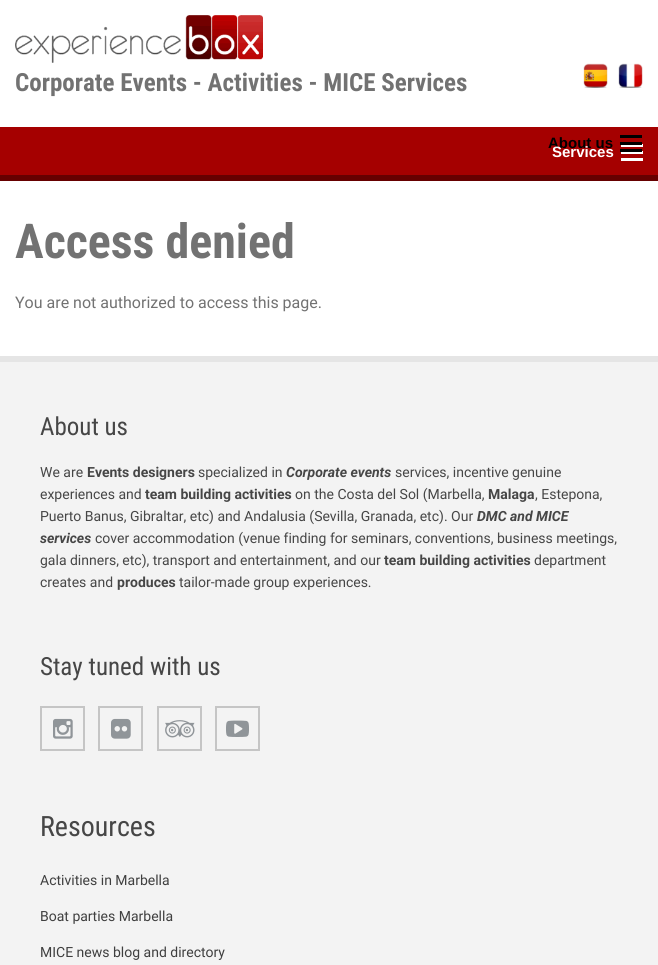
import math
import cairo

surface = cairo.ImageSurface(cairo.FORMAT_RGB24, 658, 965)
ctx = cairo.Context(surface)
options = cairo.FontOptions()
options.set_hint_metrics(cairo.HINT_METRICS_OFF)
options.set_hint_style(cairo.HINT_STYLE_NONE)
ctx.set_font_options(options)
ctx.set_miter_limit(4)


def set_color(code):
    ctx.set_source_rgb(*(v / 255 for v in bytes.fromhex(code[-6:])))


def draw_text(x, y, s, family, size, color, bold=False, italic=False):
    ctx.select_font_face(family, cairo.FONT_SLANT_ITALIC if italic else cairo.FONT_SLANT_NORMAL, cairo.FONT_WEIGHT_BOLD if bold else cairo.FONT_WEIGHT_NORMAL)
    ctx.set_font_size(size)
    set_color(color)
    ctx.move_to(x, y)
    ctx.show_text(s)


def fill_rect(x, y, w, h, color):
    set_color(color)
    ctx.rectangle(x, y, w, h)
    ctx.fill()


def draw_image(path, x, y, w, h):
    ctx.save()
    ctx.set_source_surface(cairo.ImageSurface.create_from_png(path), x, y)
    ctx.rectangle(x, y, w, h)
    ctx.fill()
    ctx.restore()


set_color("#f3f3f3")
ctx.paint()
fill_rect(0, 0, 658, 127, "#ffffff")
draw_image("assets/img1.png", 15, 15, 248, 48)
draw_text(15, 91, "Corporate Events - Activities - MICE Services", "Roboto Condensed", 25, "#727272", bold=True)
draw_image("assets/img2.png", 583, 63, 25, 25)
draw_image("assets/img3.png", 618, 63, 25, 25)
fill_rect(0, 127, 658, 48, "#a50000")
draw_text(548, 148, "About us", "Liberation Sans", 15, "#000000", bold=True)
fill_rect(620, 135, 22, 3, "#000000")
fill_rect(621, 144, 22, 3, "#ffffff")
fill_rect(620, 142, 22, 3, "#000000")
fill_rect(621, 151, 22, 3, "#ffffff")
fill_rect(620, 149, 22, 3, "#000000")
fill_rect(0, 175, 658, 6, "#660000")
draw_text(552, 157, "Services", "Liberation Sans", 15, "#ffffff", bold=True)
fill_rect(621, 158, 22, 3, "#ffffff")
fill_rect(0, 181, 658, 175, "#ffffff")
fill_rect(0, 356, 658, 6, "#e5e5e5")
draw_text(15, 258, "Access denied", "Roboto Condensed", 48, "#727272", bold=True)
draw_text(15, 308, "You are not authorized to access this page.", "Roboto", 16, "#727272")
draw_text(40, 435, "About us", "Roboto Condensed", 25, "#464646")
draw_text(40, 477, "We are", "Roboto", 14, "#464646")
draw_text(87, 477, "Events designers", "Roboto", 14, "#464646", bold=True)
draw_text(198, 477, "specialized in", "Roboto", 14, "#464646")
draw_text(286, 477, "Corporate events", "Roboto", 14, "#464646", bold=True, italic=True)
draw_text(395, 477, "services, incentive genuine", "Roboto", 14, "#464646")
draw_text(40, 499, "experiences and", "Roboto", 14, "#464646")
draw_text(145, 499, "team building activities", "Roboto", 14, "#464646", bold=True)
draw_text(295, 499, "on the Costa del Sol (Marbella,", "Roboto", 14, "#464646")
draw_text(488, 499, "Malaga", "Roboto", 14, "#464646", bold=True)
draw_text(535, 499, ", Estepona,", "Roboto", 14, "#464646")
draw_text(40, 521, "Puerto Banus, Gibraltar, etc) and Andalusia (Sevilla, Granada, etc). Our", "Roboto", 14, "#464646")
draw_text(477, 521, "DMC and MICE", "Roboto", 14, "#464646", bold=True, italic=True)
draw_text(40, 543, "services", "Roboto", 14, "#464646", bold=True, italic=True)
draw_text(95, 543, "cover accommodation (venue finding for seminars, conventions, business meetings,", "Roboto", 14, "#464646")
draw_text(40, 565, "gala dinners, etc), transport and entertainment, and our", "Roboto", 14, "#464646")
draw_text(384, 565, "team building activities", "Roboto", 14, "#464646", bold=True)
draw_text(534, 565, "department", "Roboto", 14, "#464646")
draw_text(40, 587, "creates and", "Roboto", 14, "#464646")
draw_text(117, 587, "produces", "Roboto", 14, "#464646", bold=True)
draw_text(179, 587, "tailor-made group experiences.", "Roboto", 14, "#464646")
draw_text(40, 675, "Stay tuned with us", "Roboto Condensed", 25, "#464646")
ctx.rectangle(41, 707, 43, 43)
set_color("#c5c5c5")
ctx.stroke()
draw_image("assets/img4.png", 53, 718, 20, 21)
ctx.rectangle(99, 707, 43, 43)
ctx.stroke()
draw_image("assets/img5.png", 111, 718, 20, 21)
ctx.rectangle(158, 707, 43, 43)
ctx.stroke()
draw_image("assets/img6.png", 165, 720, 30, 18)
ctx.rectangle(216, 707, 43, 43)
ctx.stroke()
draw_image("assets/img7.png", 226, 720, 23, 17)
draw_text(40, 836, "Resources", "Roboto Condensed", 28, "#464646")
draw_text(40, 885, "Activities in Marbella", "Roboto", 14, "#3f3f3f")
draw_text(40, 921, "Boat parties Marbella", "Roboto", 14, "#3f3f3f")
draw_text(40, 957, "MICE news blog and directory", "Roboto", 14, "#3f3f3f")
surface.write_to_png("output.png")
